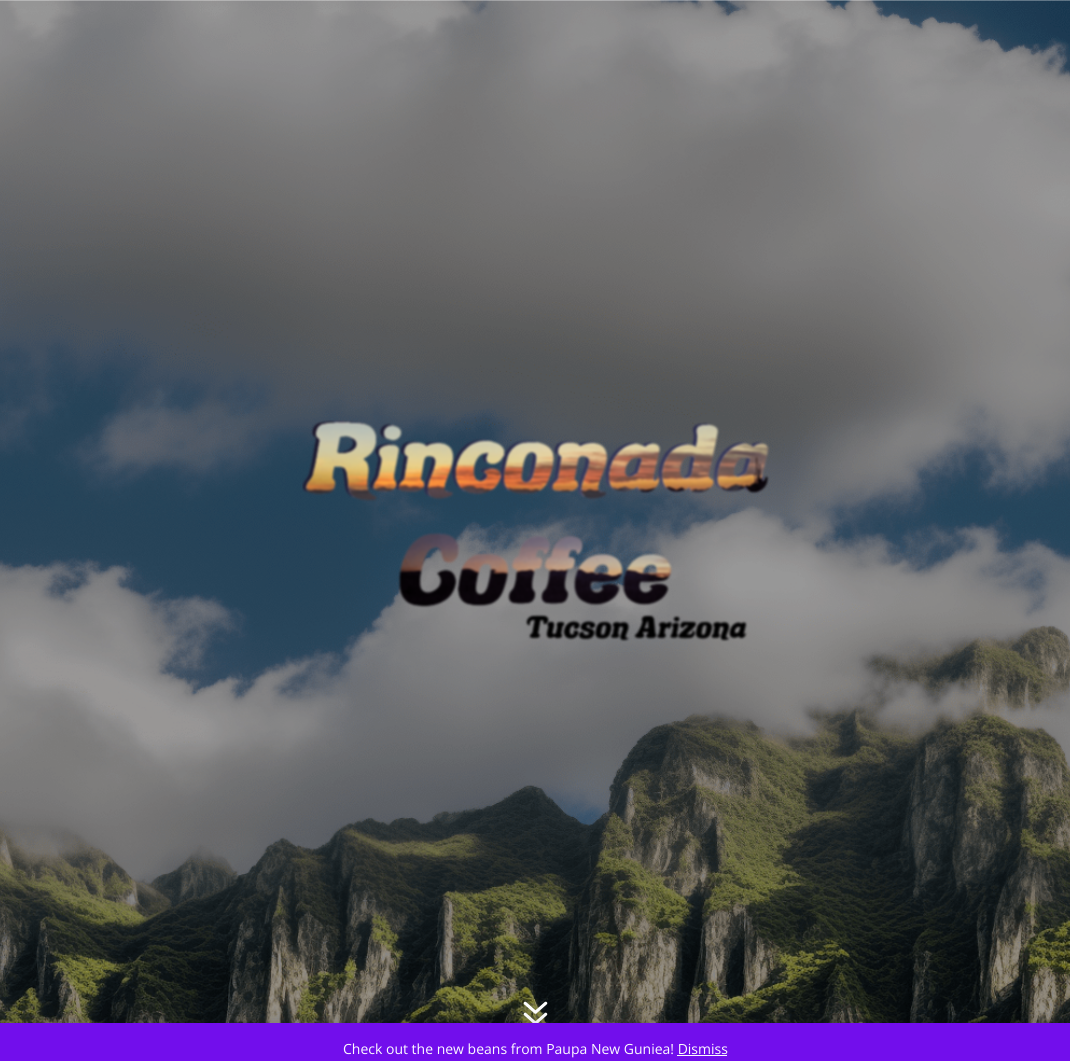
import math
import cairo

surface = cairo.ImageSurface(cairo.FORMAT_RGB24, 1070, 1061)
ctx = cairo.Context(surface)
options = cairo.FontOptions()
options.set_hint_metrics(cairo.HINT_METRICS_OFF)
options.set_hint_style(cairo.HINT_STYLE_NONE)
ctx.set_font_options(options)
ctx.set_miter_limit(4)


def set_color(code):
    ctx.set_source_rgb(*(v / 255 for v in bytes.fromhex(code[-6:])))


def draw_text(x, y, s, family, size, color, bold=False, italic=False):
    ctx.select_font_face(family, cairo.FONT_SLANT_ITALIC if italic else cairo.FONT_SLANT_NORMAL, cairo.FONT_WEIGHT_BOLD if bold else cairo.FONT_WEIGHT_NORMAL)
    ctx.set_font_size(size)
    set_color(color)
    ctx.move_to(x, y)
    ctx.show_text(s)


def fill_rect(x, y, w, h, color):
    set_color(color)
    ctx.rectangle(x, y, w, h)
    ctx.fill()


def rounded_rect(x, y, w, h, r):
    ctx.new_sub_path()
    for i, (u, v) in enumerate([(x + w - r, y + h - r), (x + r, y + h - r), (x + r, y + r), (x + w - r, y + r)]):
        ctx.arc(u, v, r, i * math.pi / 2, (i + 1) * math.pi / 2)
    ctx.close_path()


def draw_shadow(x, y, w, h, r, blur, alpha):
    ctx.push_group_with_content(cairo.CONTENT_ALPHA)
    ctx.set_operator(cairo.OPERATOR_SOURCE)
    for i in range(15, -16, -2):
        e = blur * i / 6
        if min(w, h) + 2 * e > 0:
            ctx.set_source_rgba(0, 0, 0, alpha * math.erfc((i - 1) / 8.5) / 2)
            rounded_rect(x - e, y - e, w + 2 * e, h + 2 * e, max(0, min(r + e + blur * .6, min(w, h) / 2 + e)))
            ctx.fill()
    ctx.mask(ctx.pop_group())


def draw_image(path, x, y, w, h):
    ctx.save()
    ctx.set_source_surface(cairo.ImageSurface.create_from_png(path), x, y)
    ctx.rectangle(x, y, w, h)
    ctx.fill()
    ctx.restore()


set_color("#ffffff")
ctx.paint()
draw_image("assets/img1.png", 0, 0, 1070, 1023)
draw_image("assets/img2.png", 302, 420, 468, 222)
draw_image("assets/img3.png", 523, 1001, 25, 22)
set_color("#000000")
draw_shadow(0, 1024, 1070, 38, 0, 7, 0.2)
fill_rect(0, 1023, 1070, 38, "#720eec")
draw_text(343, 1054, "Check out the new beans from Paupa New Guniea! Dismiss", "Open Sans", 14, "#fcfbfe")
fill_rect(677, 1055, 50, 1, "#fcfbfe")
surface.write_to_png("output.png")
